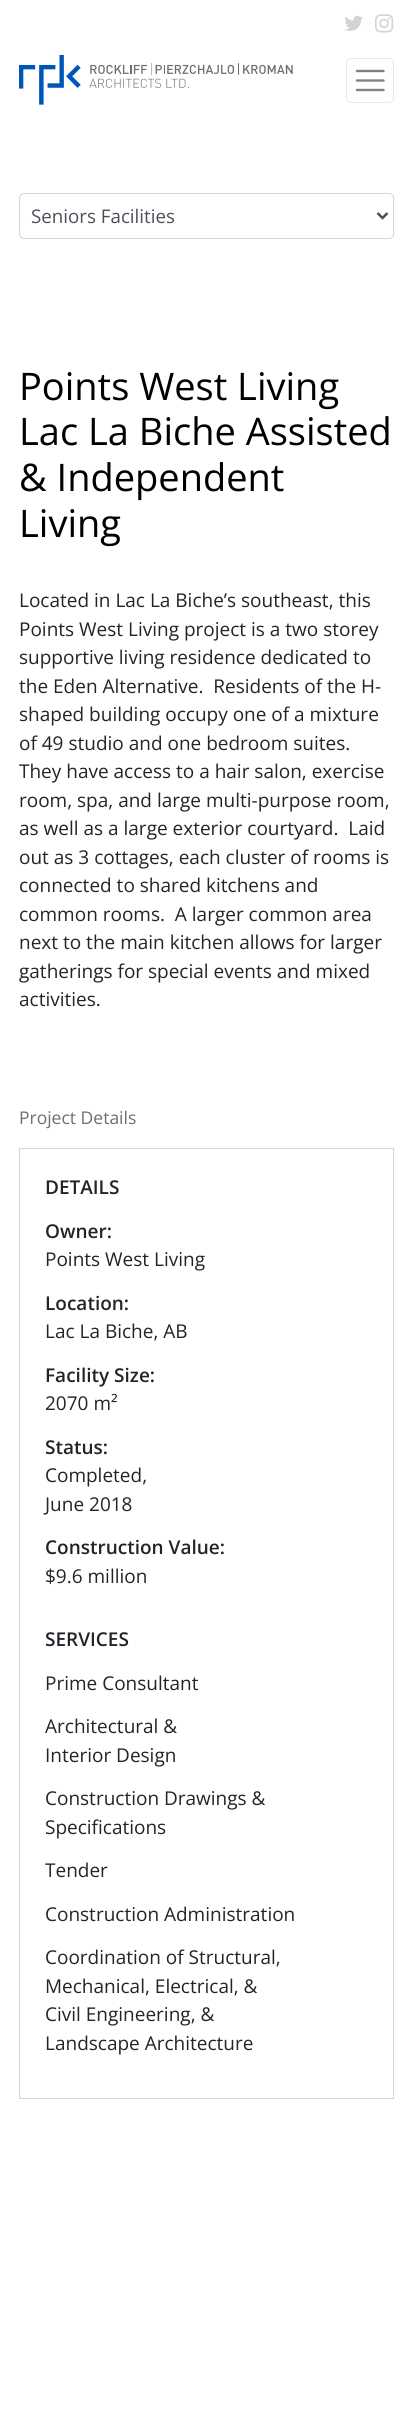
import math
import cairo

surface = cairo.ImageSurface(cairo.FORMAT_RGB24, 412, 2415)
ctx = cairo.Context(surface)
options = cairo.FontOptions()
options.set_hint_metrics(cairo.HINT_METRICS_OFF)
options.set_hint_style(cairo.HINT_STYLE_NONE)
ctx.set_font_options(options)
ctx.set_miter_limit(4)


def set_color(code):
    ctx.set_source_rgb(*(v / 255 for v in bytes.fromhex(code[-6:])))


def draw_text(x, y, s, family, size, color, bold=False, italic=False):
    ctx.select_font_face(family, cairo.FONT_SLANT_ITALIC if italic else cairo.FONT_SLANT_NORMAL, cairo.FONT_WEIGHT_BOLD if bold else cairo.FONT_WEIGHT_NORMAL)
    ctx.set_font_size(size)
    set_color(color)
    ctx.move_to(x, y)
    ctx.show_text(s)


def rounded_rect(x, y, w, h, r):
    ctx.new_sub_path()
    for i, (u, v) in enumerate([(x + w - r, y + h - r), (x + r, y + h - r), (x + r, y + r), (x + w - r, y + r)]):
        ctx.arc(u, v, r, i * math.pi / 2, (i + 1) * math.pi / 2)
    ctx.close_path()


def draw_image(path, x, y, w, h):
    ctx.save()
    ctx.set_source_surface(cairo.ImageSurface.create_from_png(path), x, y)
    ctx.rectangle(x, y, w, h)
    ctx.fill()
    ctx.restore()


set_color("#ffffff")
ctx.paint()
draw_image("assets/img1.png", 344, 15, 19, 16)
draw_image("assets/img2.png", 375, 14, 19, 19)
draw_image("assets/img3.png", 19, 55, 274, 50)
rounded_rect(346.5, 58.5, 47, 44, 4.5)
set_color("#e6e6e6")
ctx.set_line_width(1)
ctx.stroke()
ctx.new_path()
ctx.move_to(357, 71)
ctx.line_to(383.5, 71)
ctx.move_to(357, 80.5)
ctx.line_to(383.5, 80.5)
ctx.move_to(357, 90)
ctx.line_to(383.5, 90)
set_color("#808080")
ctx.set_line_width(2.4)
ctx.set_line_cap(cairo.LINE_CAP_ROUND)
ctx.stroke()
rounded_rect(19.5, 193.5, 374, 45, 4.5)
set_color("#ced4da")
ctx.set_line_width(1)
ctx.set_line_cap(cairo.LINE_CAP_BUTT)
ctx.stroke()
ctx.new_path()
ctx.move_to(377.5, 213)
ctx.line_to(382.5, 218)
ctx.line_to(387.5, 213)
set_color("#495057")
ctx.set_line_width(2.5)
ctx.stroke()
draw_text(31, 223, "Seniors Facilities", "Open Sans", 18.75, "#495057")
draw_text(19, 400, "Points West Living", "Open Sans", 38, "#000000")
draw_text(19, 445, "Lac La Biche Assisted", "Open Sans", 38, "#000000")
draw_text(19, 491, "& Independent", "Open Sans", 38, "#000000")
draw_text(19, 537, "Living", "Open Sans", 38, "#000000")
draw_text(19, 607, "Located in Lac La Biche’s southeast, this", "Open Sans", 19, "#212529")
draw_text(19, 636, "Points West Living project is a two storey", "Open Sans", 19, "#212529")
draw_text(19, 664, "supportive living residence dedicated to", "Open Sans", 19, "#212529")
draw_text(19, 693, "the Eden Alternative.  Residents of the H-", "Open Sans", 19, "#212529")
draw_text(19, 721, "shaped building occupy one of a mixture", "Open Sans", 19, "#212529")
draw_text(19, 750, "of 49 studio and one bedroom suites.", "Open Sans", 19, "#212529")
draw_text(19, 778, "They have access to a hair salon, exercise", "Open Sans", 19, "#212529")
draw_text(19, 807, "room, spa, and large multi-purpose room,", "Open Sans", 19, "#212529")
draw_text(19, 835, "as well as a large exterior courtyard.  Laid", "Open Sans", 19, "#212529")
draw_text(19, 864, "out as 3 cottages, each cluster of rooms is", "Open Sans", 19, "#212529")
draw_text(19, 892, "connected to shared kitchens and", "Open Sans", 19, "#212529")
draw_text(19, 921, "common rooms.  A larger common area", "Open Sans", 19, "#212529")
draw_text(19, 949, "next to the main kitchen allows for larger", "Open Sans", 19, "#212529")
draw_text(19, 978, "gatherings for special events and mixed", "Open Sans", 19, "#212529")
draw_text(19, 1006, "activities.", "Open Sans", 19, "#212529")
draw_text(19, 1124, "Project Details", "Open Sans", 17.5, "#6d6e71")
ctx.rectangle(19.5, 1148.5, 374, 950)
set_color("#d3d3d3")
ctx.set_line_width(1)
ctx.stroke()
draw_text(45, 1194, "DETAILS", "Open Sans SemiBold", 19, "#212529")
draw_text(45, 1238, "Owner:", "Open Sans SemiBold", 19, "#212529")
draw_text(45, 1266, "Points West Living", "Open Sans", 19, "#212529")
draw_text(45, 1310, "Location:", "Open Sans SemiBold", 19, "#212529")
draw_text(45, 1338, "Lac La Biche, AB", "Open Sans", 19, "#212529")
draw_text(45, 1382, "Facility Size:", "Open Sans SemiBold", 19, "#212529")
draw_text(45, 1410, "2070 m²", "Open Sans", 19, "#212529")
draw_text(45, 1454, "Status:", "Open Sans SemiBold", 19, "#212529")
draw_text(45, 1482, "Completed,", "Open Sans", 19, "#212529")
draw_text(45, 1511, "June 2018", "Open Sans", 19, "#212529")
draw_text(45, 1554, "Construction Value:", "Open Sans SemiBold", 19, "#212529")
draw_text(45, 1583, "$9.6 million", "Open Sans", 19, "#212529")
draw_text(45, 1646, "SERVICES", "Open Sans SemiBold", 19, "#212529")
draw_text(45, 1690, "Prime Consultant", "Open Sans", 19, "#212529")
draw_text(45, 1733, "Architectural &", "Open Sans", 19, "#212529")
draw_text(45, 1762, "Interior Design", "Open Sans", 19, "#212529")
draw_text(45, 1805, "Construction Drawings &", "Open Sans", 19, "#212529")
draw_text(45, 1834, "Specifications", "Open Sans", 19, "#212529")
draw_text(45, 1877, "Tender", "Open Sans", 19, "#212529")
draw_text(45, 1921, "Construction Administration", "Open Sans", 19, "#212529")
draw_text(45, 1964, "Coordination of Structural,", "Open Sans", 19, "#212529")
draw_text(45, 1993, "Mechanical, Electrical, &", "Open Sans", 19, "#212529")
draw_text(45, 2021, "Civil Engineering, &", "Open Sans", 19, "#212529")
draw_text(45, 2050, "Landscape Architecture", "Open Sans", 19, "#212529")
surface.write_to_png("output.png")
